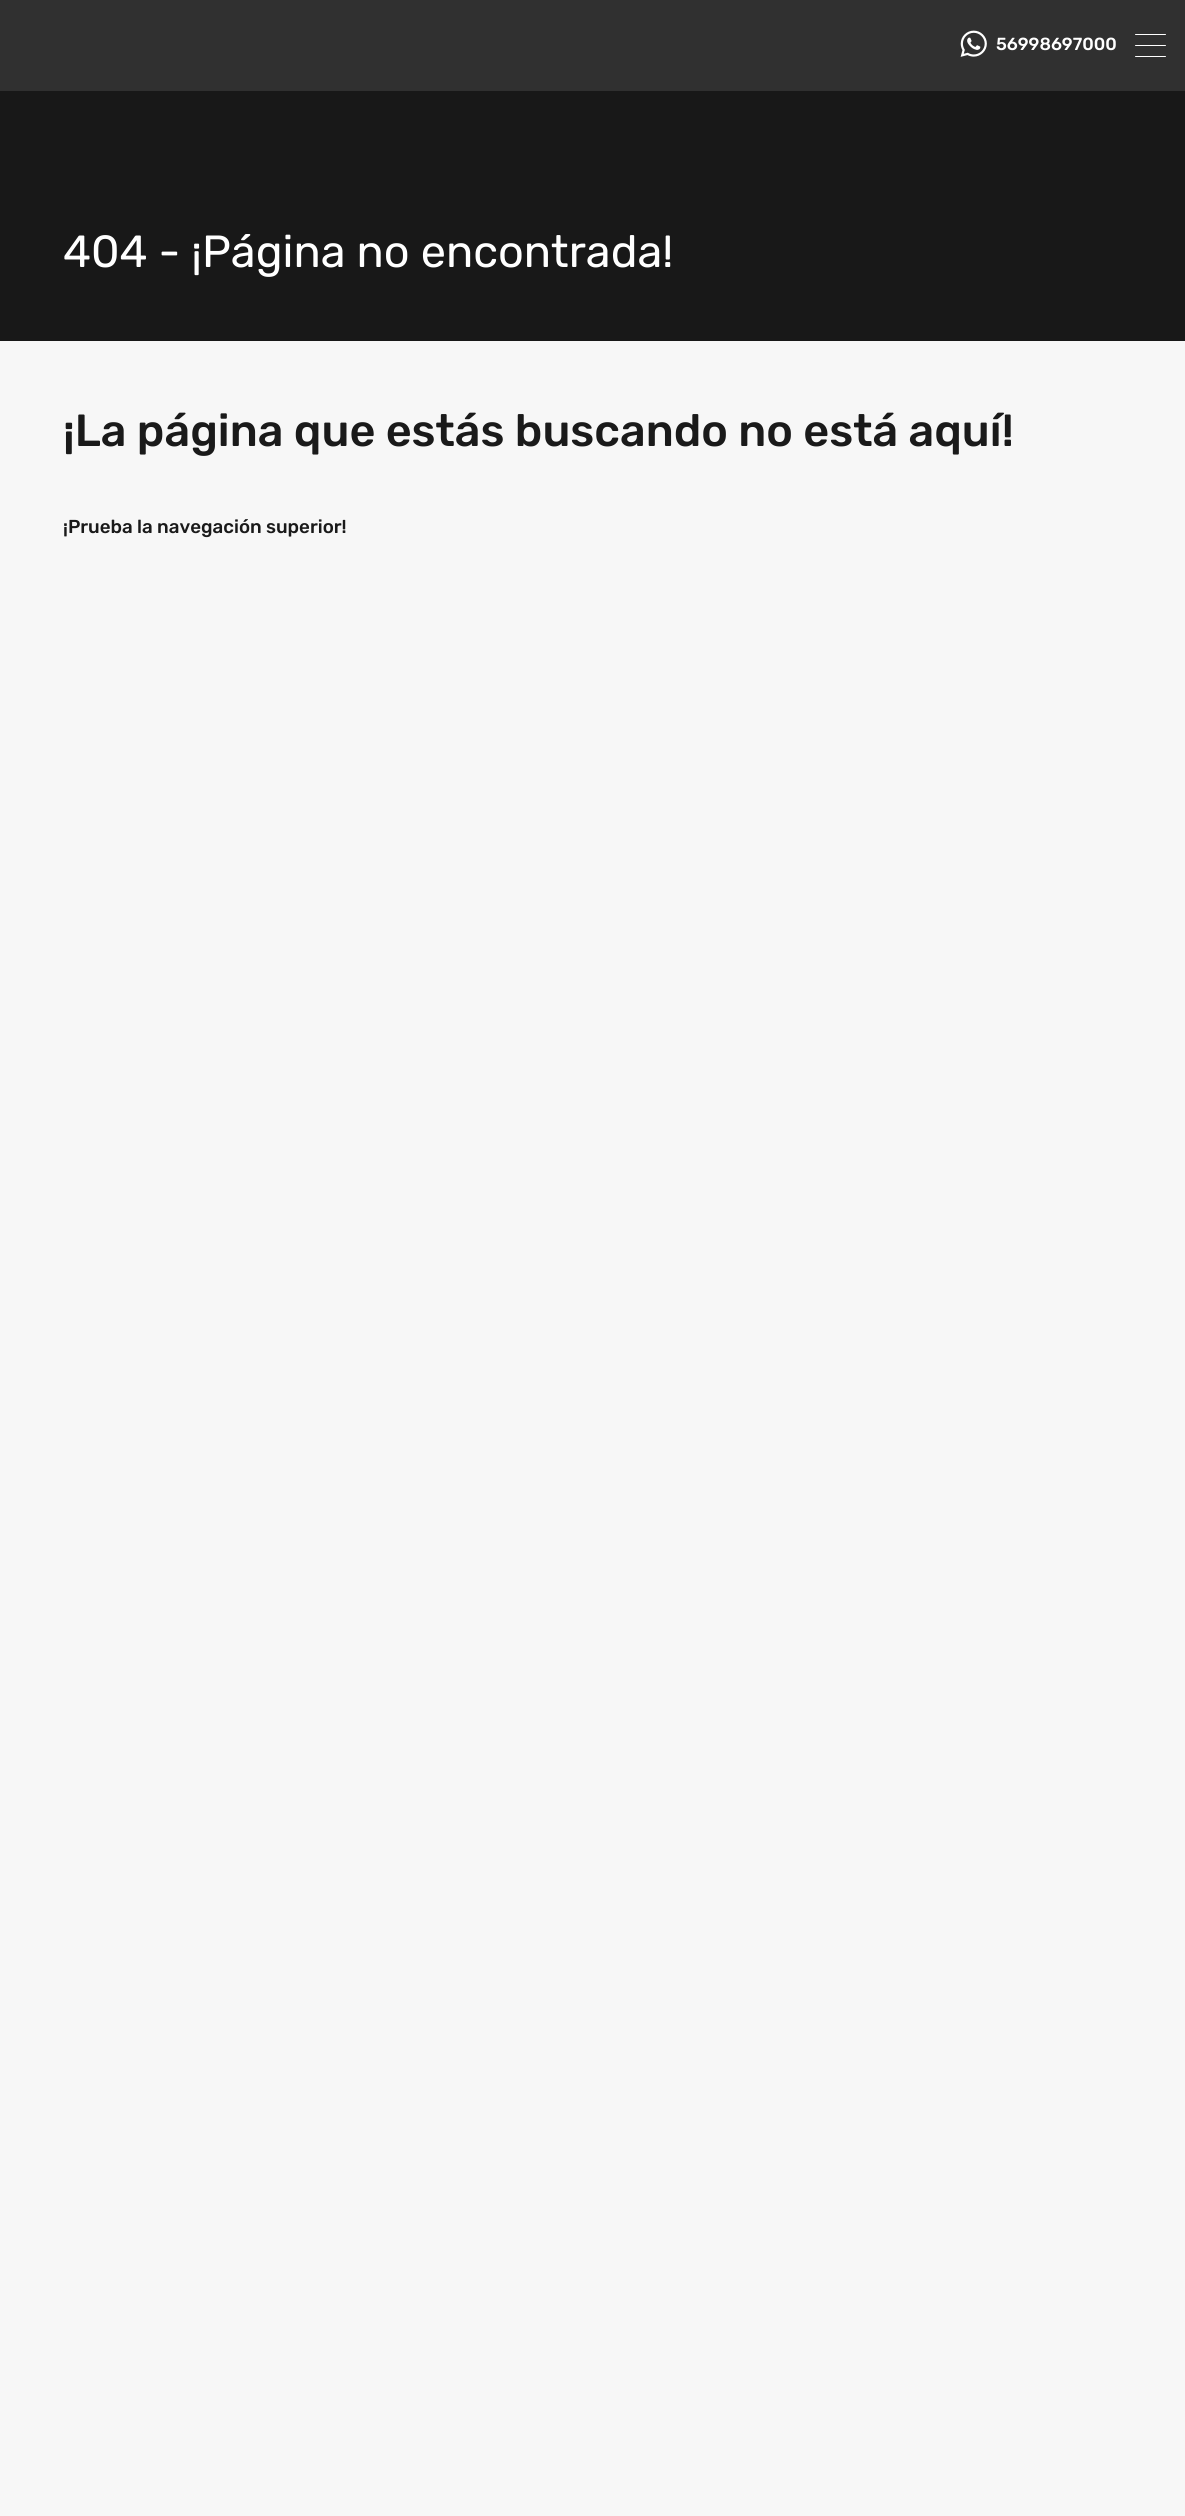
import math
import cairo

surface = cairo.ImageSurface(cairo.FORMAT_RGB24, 1185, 2516)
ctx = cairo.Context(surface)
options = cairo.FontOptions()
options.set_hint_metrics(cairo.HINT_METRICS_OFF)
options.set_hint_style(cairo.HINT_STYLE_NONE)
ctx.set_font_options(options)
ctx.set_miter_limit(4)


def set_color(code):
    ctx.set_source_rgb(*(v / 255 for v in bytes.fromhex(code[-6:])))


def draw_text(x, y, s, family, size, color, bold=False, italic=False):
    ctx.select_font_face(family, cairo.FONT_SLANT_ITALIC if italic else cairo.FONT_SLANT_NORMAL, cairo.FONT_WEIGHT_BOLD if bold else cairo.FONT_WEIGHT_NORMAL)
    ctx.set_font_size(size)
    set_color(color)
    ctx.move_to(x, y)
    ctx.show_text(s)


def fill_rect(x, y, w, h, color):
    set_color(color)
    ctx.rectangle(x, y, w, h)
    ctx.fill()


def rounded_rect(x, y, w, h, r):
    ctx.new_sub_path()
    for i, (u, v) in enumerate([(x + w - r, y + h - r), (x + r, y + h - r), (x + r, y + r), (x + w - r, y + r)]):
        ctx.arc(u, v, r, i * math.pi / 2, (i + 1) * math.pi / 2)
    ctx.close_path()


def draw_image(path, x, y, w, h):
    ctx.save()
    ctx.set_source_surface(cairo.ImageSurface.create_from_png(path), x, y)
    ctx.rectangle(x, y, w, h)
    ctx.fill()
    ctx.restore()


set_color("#f7f7f7")
ctx.paint()
fill_rect(0, 0, 1185, 91, "#303030")
draw_image("assets/img1.png", 960, 30, 27, 27)
draw_text(996, 50, "56998697000", "Rubik Medium", 17.5, "#ffffff")
rounded_rect(1135, 45, 31, 1, 0.5)
ctx.fill()
rounded_rect(1135, 34, 31, 1, 0.5)
ctx.fill()
rounded_rect(1135, 56, 31, 1, 0.5)
ctx.fill()
fill_rect(0, 91, 1185, 250, "#181818")
draw_text(63, 267, "404 - ¡Página no encontrada!", "Rubik", 45, "#ffffff")
draw_text(63, 446, "¡La página que estás buscando no está aquí!", "Rubik Medium", 45, "#1a1a1a")
draw_text(63, 533, "¡Prueba la navegación superior!", "Rubik Medium", 18.75, "#1a1a1a")
surface.write_to_png("output.png")
